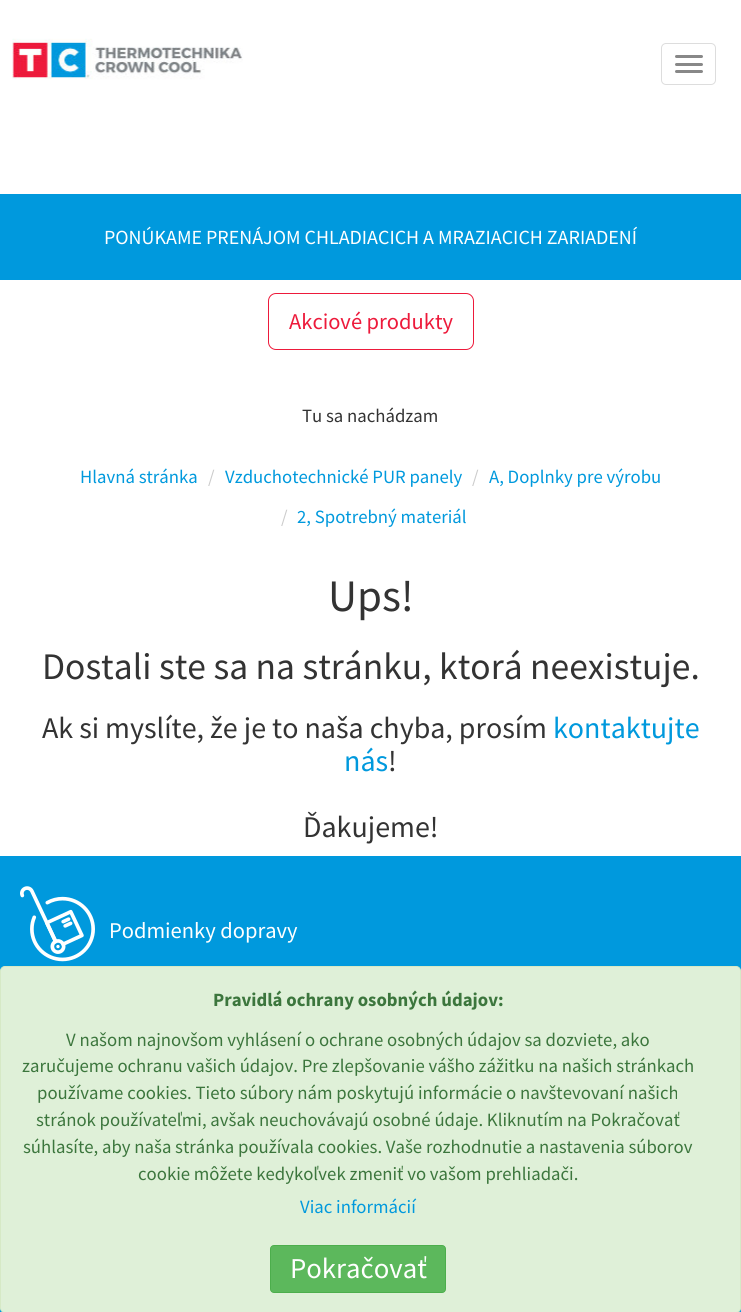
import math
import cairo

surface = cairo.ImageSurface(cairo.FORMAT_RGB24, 741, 1312)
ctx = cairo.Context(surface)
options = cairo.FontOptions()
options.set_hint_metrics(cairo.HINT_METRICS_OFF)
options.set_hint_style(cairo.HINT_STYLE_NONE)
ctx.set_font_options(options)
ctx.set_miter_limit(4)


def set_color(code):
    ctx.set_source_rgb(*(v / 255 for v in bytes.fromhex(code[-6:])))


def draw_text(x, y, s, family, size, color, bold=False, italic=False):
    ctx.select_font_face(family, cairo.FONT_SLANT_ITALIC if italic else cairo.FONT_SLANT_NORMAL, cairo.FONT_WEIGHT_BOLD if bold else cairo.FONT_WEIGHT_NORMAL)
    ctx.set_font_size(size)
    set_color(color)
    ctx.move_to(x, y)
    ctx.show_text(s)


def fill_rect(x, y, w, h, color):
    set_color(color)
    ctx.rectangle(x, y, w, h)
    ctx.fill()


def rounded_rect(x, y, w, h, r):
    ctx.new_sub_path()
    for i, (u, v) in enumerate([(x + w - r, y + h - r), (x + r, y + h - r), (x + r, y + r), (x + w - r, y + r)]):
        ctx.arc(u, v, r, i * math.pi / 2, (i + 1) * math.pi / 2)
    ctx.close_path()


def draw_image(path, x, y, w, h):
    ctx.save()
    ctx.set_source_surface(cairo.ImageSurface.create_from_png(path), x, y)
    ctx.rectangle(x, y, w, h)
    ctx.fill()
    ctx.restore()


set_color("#ffffff")
ctx.paint()
draw_image("assets/img1.png", 12, 38, 231, 42)
rounded_rect(661.5, 43.5, 54, 41, 4.5)
set_color("#dddddd")
ctx.set_line_width(1)
ctx.stroke()
set_color("#888888")
rounded_rect(675, 55, 28, 3, 1.5)
ctx.fill()
rounded_rect(675, 63, 28, 3, 1.5)
ctx.fill()
rounded_rect(675, 70, 28, 3, 1.5)
ctx.fill()
fill_rect(0, 194, 741, 86, "#0099dd")
draw_text(104, 244, "PONÚKAME PRENÁJOM CHLADIACICH A MRAZIACICH ZARIADENÍ", "Source Sans Pro", 20, "#ffffff")
rounded_rect(268.5, 293.5, 205, 56, 7.5)
set_color("#ed1a3b")
ctx.stroke()
draw_text(289, 329, "Akciové produkty", "Source Sans Pro", 22.5, "#ed1a3b")
draw_text(302, 422, "Tu sa nachádzam", "Source Sans Pro", 18.75, "#333333")
draw_text(80, 483, "Hlavná stránka", "Source Sans Pro", 18.75, "#0099dd")
draw_text(208, 483, "/", "Source Sans Pro", 18.75, "#cccccc")
draw_text(225, 483, "Vzduchotechnické PUR panely", "Source Sans Pro", 18.75, "#0099dd")
draw_text(472, 483, "/", "Source Sans Pro", 18.75, "#cccccc")
draw_text(489, 483, "A, Doplnky pre výrobu", "Source Sans Pro", 18.75, "#0099dd")
draw_text(281, 523, "/", "Source Sans Pro", 18.75, "#cccccc")
draw_text(297, 523, "2, Spotrebný materiál", "Source Sans Pro", 18.75, "#0099dd")
draw_text(328, 611, "Ups!", "Source Sans Pro", 45, "#333333")
draw_text(42, 679, "Dostali ste sa na stránku, ktorá neexistuje.", "Source Sans Pro", 37.5, "#333333")
draw_text(42, 738, "Ak si myslíte, že je to naša chyba, prosím", "Source Sans Pro", 30, "#333333")
draw_text(553, 738, "kontaktujte", "Source Sans Pro", 30, "#0099dd")
draw_text(344, 771, "nás", "Source Sans Pro", 30, "#0099dd")
draw_text(388, 771, "!", "Source Sans Pro", 30, "#333333")
draw_text(303, 837, "Ďakujeme!", "Source Sans Pro", 30, "#333333")
fill_rect(0, 856, 741, 456, "#0099dd")
draw_image("assets/img2.png", 20, 886, 75, 76)
draw_text(109, 938, "Podmienky dopravy", "Source Sans Pro", 22.5, "#ffffff")
set_color("#dff0d8")
rounded_rect(0.5, 966.5, 740, 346, 4.5)
ctx.fill_preserve()
set_color("#d6e9c6")
ctx.stroke()
draw_text(213, 1006, "Pravidlá ochrany osobných údajov:", "Source Sans Pro", 18.75, "#3c763d", bold=True)
draw_text(66, 1046, "V našom najnovšom vyhlásení o ochrane osobných údajov sa dozviete, ako", "Source Sans Pro", 18.75, "#3c763d")
draw_text(22, 1072, "zaručujeme ochranu vašich údajov. Pre zlepšovanie vášho zážitku na našich stránkach", "Source Sans Pro", 18.75, "#3c763d")
draw_text(37, 1099, "používame cookies. Tieto súbory nám poskytujú informácie o navštevovaní našich", "Source Sans Pro", 18.75, "#3c763d")
draw_text(36, 1126, "stránok používateľmi, avšak neuchovávajú osobné údaje. Kliknutím na Pokračovať", "Source Sans Pro", 18.75, "#3c763d")
draw_text(23, 1153, "súhlasíte, aby naša stránka používala cookies. Vaše rozhodnutie a nastavenia súborov", "Source Sans Pro", 18.75, "#3c763d")
draw_text(138, 1180, "cookie môžete kedykoľvek zmeniť vo vašom prehliadači.", "Source Sans Pro", 18.75, "#3c763d")
draw_text(300, 1213, "Viac informácií", "Source Sans Pro", 18.75, "#0099dd")
set_color("#5cb85c")
rounded_rect(270.5, 1245.5, 175, 47, 3.5)
ctx.fill_preserve()
set_color("#4cae4c")
ctx.stroke()
draw_text(290, 1278, "Pokračovať", "Source Sans Pro", 28.75, "#ffffff")
surface.write_to_png("output.png")
